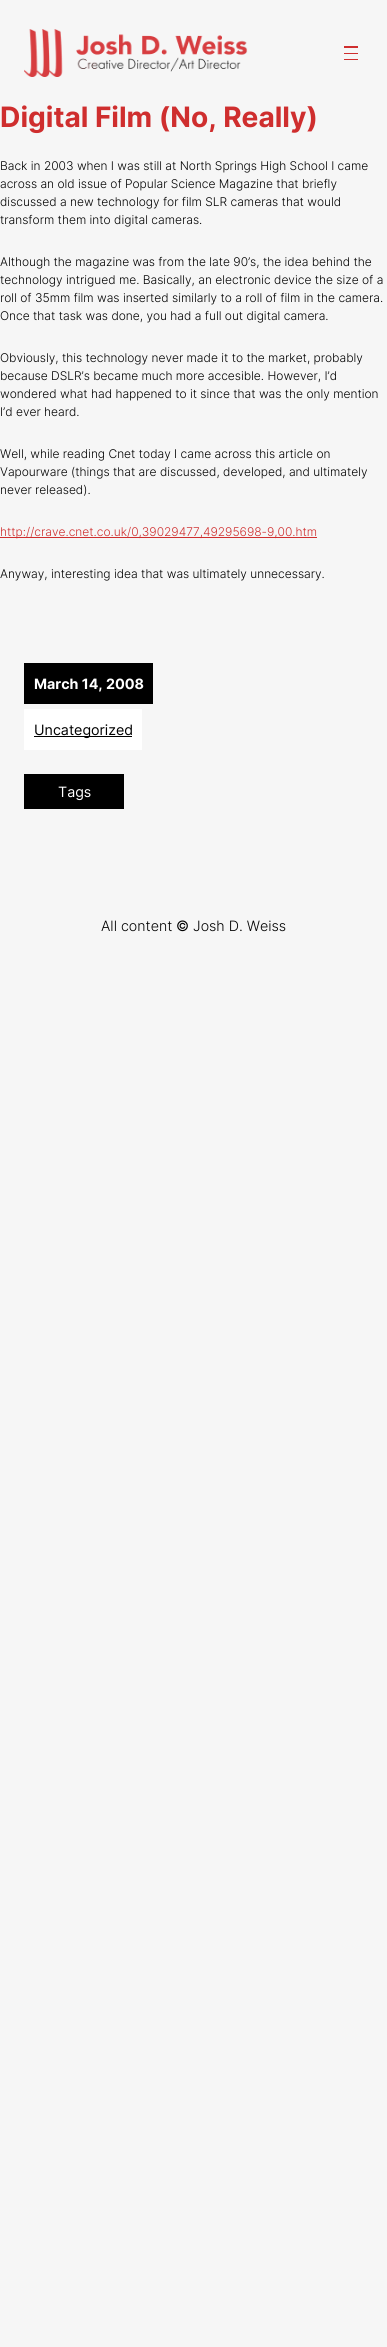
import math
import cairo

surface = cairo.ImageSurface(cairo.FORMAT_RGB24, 387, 2347)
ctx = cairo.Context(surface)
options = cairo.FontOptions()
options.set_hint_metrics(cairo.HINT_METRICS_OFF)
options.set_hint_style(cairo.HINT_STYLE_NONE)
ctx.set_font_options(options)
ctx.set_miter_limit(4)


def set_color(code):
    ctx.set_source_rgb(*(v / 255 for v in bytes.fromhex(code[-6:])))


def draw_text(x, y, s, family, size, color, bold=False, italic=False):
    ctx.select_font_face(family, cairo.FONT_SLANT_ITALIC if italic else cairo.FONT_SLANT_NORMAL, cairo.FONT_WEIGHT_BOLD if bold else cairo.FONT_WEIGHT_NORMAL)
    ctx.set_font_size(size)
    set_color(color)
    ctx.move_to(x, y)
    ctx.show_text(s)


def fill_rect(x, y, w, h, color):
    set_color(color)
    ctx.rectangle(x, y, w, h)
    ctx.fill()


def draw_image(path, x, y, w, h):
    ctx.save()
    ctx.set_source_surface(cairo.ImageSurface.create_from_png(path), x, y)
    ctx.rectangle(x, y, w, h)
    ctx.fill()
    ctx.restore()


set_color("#f6f6f6")
ctx.paint()
draw_image("assets/img1.png", 24, 29, 224, 48)
fill_rect(344, 46, 14, 2, "#cf2e2e")
fill_rect(344, 53, 14, 1, "#cf2e2e")
fill_rect(344, 59, 14, 1, "#cf2e2e")
draw_text(0, 127, "Digital Film (No, Really)", "Inter", 28.1, "#cf2e2e", bold=True)
draw_text(0, 170, "Back in 2003 when I was still at North Springs High School I came", "Inter Light", 12, "#000000")
draw_text(0, 188, "across an old issue of Popular Science Magazine that briefly", "Inter Light", 12, "#000000")
draw_text(0, 206, "discussed a new technology for film SLR cameras that would", "Inter Light", 12, "#000000")
draw_text(0, 224, "transform them into digital cameras.", "Inter Light", 12, "#000000")
draw_text(0, 266, "Although the magazine was from the late 90’s, the idea behind the", "Inter Light", 12, "#000000")
draw_text(0, 284, "technology intrigued me. Basically, an electronic device the size of a", "Inter Light", 12, "#000000")
draw_text(0, 302, "roll of 35mm film was inserted similarly to a roll of film in the camera.", "Inter Light", 12, "#000000")
draw_text(0, 320, "Once that task was done, you had a full out digital camera.", "Inter Light", 12, "#000000")
draw_text(0, 362, "Obviously, this technology never made it to the market, probably", "Inter Light", 12, "#000000")
draw_text(0, 380, "because DSLR’s became much more accesible. However, I’d", "Inter Light", 12, "#000000")
draw_text(0, 398, "wondered what had happened to it since that was the only mention", "Inter Light", 12, "#000000")
draw_text(0, 416, "I’d ever heard.", "Inter Light", 12, "#000000")
draw_text(0, 458, "Well, while reading Cnet today I came across this article on", "Inter Light", 12, "#000000")
draw_text(0, 476, "Vapourware (things that are discussed, developed, and ultimately", "Inter Light", 12, "#000000")
draw_text(0, 494, "never released).", "Inter Light", 12, "#000000")
fill_rect(0, 537, 317, 1, "#cf2e2e")
draw_text(0, 536, "http://crave.cnet.co.uk/0,39029477,49295698-9,00.htm", "Inter Light", 12, "#cf2e2e")
draw_text(0, 578, "Anyway, interesting idea that was ultimately unnecessary.", "Inter Light", 12, "#000000")
fill_rect(24, 663, 129, 41, "#000000")
draw_text(34, 689, "March 14, 2008", "Inter", 14.25, "#ffffff", bold=True)
fill_rect(24, 709, 118, 41, "#ffffff")
fill_rect(34, 736, 98, 1, "#000000")
draw_text(34, 735, "Uncategorized", "Inter", 14.25, "#000000")
fill_rect(24, 774, 100, 35, "#000000")
draw_text(58, 797, "Tags", "Inter", 14.25, "#ffffff")
draw_text(101, 931, "All content", "Inter Light", 14.25, "#000000")
draw_text(176, 931, "©", "Inter", 14.25, "#000000")
draw_text(193, 931, "Josh D. Weiss", "Inter Light", 14.25, "#000000")
surface.write_to_png("output.png")
